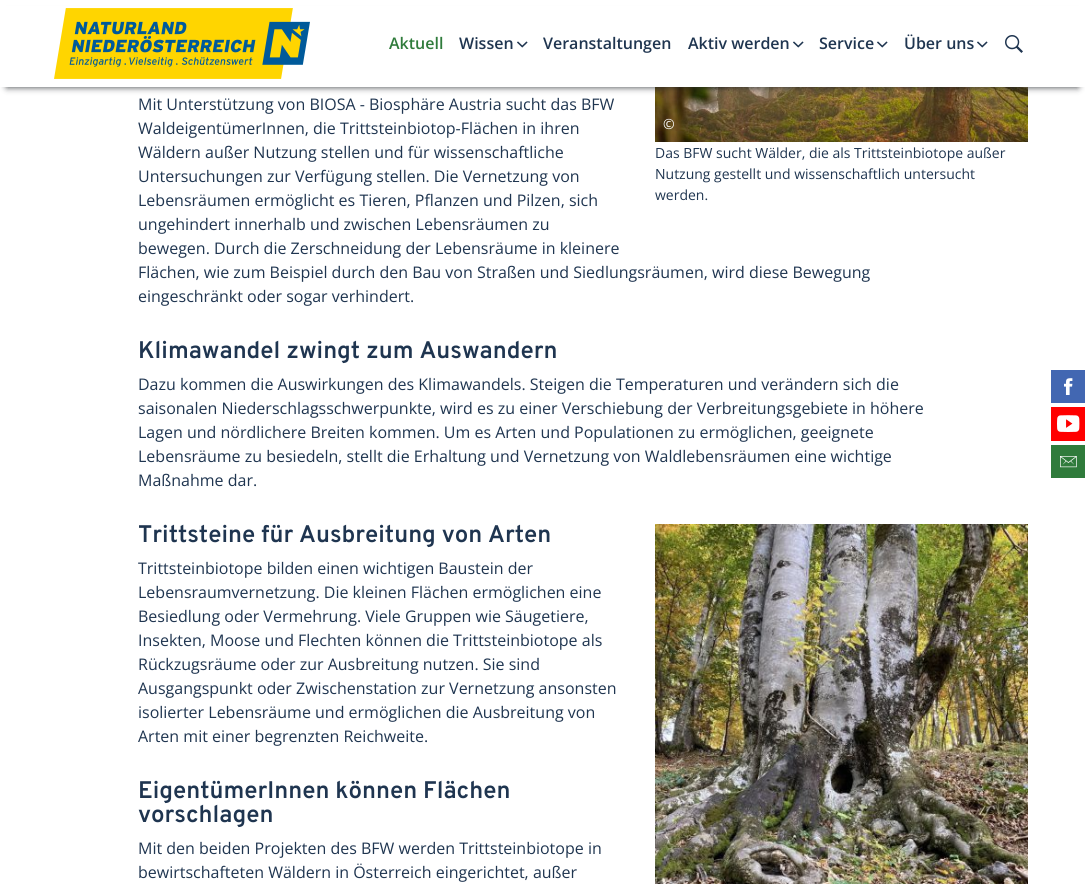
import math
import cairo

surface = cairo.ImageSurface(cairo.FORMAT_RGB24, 1085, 884)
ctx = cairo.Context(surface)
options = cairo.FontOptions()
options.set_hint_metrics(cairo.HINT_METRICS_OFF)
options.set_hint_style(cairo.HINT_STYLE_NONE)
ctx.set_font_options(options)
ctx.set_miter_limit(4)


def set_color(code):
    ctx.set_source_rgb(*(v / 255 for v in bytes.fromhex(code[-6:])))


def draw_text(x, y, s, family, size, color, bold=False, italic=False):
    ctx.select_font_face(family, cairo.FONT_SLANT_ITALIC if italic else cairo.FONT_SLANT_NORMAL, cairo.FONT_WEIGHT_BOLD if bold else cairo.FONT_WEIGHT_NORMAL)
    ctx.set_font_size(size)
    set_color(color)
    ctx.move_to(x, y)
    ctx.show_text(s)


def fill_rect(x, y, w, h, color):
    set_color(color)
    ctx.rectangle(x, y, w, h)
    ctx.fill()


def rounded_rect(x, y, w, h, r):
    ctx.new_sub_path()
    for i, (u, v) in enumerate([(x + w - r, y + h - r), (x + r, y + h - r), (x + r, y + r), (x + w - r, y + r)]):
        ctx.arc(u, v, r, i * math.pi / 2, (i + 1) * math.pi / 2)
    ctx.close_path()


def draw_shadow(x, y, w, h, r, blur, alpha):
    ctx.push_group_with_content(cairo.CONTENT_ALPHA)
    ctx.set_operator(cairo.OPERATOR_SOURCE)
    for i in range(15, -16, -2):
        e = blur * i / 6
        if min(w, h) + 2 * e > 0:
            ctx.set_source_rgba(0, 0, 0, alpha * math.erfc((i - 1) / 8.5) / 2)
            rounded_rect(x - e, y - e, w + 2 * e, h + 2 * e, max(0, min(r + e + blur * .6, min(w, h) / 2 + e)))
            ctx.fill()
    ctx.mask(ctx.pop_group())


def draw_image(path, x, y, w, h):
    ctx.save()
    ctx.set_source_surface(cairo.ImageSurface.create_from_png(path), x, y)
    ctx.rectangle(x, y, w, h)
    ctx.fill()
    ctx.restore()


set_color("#ffffff")
ctx.paint()
draw_image("assets/img4.png", 655, 87, 373, 55)
set_color("#212529")
draw_shadow(7, 14, 1071, 73, 0, 3.5, 0.9)
fill_rect(0, 6, 1085, 81, "#ffffff")
draw_image("assets/img1.png", 54, 8, 256, 71)
draw_text(389, 49, "Aktuell", "Open Sans SemiBold", 16, "#2f7b3b")
draw_text(459, 49, "Wissen", "Open Sans SemiBold", 16, "#1f3550")
draw_image("assets/img2.png", 517, 41, 11, 7)
draw_text(543, 49, "Veranstaltungen", "Open Sans SemiBold", 16, "#1f3550")
draw_text(688, 49, "Aktiv werden", "Open Sans SemiBold", 16, "#1f3550")
draw_image("assets/img2.png", 793, 41, 11, 7)
draw_text(819, 49, "Service", "Open Sans SemiBold", 16, "#1f3550")
draw_image("assets/img2.png", 877, 41, 11, 7)
draw_text(904, 49, "Über uns", "Open Sans SemiBold", 16, "#1f3550")
draw_image("assets/img2.png", 977, 41, 11, 7)
draw_image("assets/img3.png", 1005, 35, 18, 18)
draw_text(138, 110, "Mit Unterstützung von BIOSA - Biosphäre Austria sucht das BFW", "Open Sans", 16, "#1f3550")
draw_text(138, 134, "WaldeigentümerInnen, die Trittsteinbiotop-Flächen in ihren", "Open Sans", 16, "#1f3550")
draw_text(138, 158, "Wäldern außer Nutzung stellen und für wissenschaftliche", "Open Sans", 16, "#1f3550")
draw_text(138, 182, "Untersuchungen zur Verfügung stellen. Die Vernetzung von", "Open Sans", 16, "#1f3550")
draw_text(138, 206, "Lebensräumen ermöglicht es Tieren, Pflanzen und Pilzen, sich", "Open Sans", 16, "#1f3550")
draw_text(138, 230, "ungehindert innerhalb und zwischen Lebensräumen zu", "Open Sans", 16, "#1f3550")
draw_text(138, 254, "bewegen. Durch die Zerschneidung der Lebensräume in kleinere", "Open Sans", 16, "#1f3550")
draw_text(138, 278, "Flächen, wie zum Beispiel durch den Bau von Straßen und Siedlungsräumen, wird diese Bewegung", "Open Sans", 16, "#1f3550")
draw_text(138, 302, "eingeschränkt oder sogar verhindert.", "Open Sans", 16, "#1f3550")
draw_text(138, 358, "Klimawandel zwingt zum Auswandern", "Overpass SemiBold", 24, "#1f3550")
draw_text(138, 390, "Dazu kommen die Auswirkungen des Klimawandels. Steigen die Temperaturen und verändern sich die", "Open Sans", 16, "#1f3550")
draw_text(138, 414, "saisonalen Niederschlagsschwerpunkte, wird es zu einer Verschiebung der Verbreitungsgebiete in höhere", "Open Sans", 16, "#1f3550")
draw_text(138, 438, "Lagen und nördlichere Breiten kommen. Um es Arten und Populationen zu ermöglichen, geeignete", "Open Sans", 16, "#1f3550")
draw_text(138, 462, "Lebensräume zu besiedeln, stellt die Erhaltung und Vernetzung von Waldlebensräumen eine wichtige", "Open Sans", 16, "#1f3550")
draw_text(138, 486, "Maßnahme dar.", "Open Sans", 16, "#1f3550")
draw_text(663, 129, "©", "Open Sans", 14, "#ffffff")
draw_text(655, 158, "Das BFW sucht Wälder, die als Trittsteinbiotope außer", "Open Sans", 14, "#1f3550")
draw_text(655, 179, "Nutzung gestellt und wissenschaftlich untersucht", "Open Sans", 14, "#1f3550")
draw_text(655, 200, "werden.", "Open Sans", 14, "#1f3550")
draw_text(138, 542, "Trittsteine für Ausbreitung von Arten", "Overpass SemiBold", 24, "#1f3550")
draw_text(138, 574, "Trittsteinbiotope bilden einen wichtigen Baustein der", "Open Sans", 16, "#1f3550")
draw_text(138, 598, "Lebensraumvernetzung. Die kleinen Flächen ermöglichen eine", "Open Sans", 16, "#1f3550")
draw_text(138, 622, "Besiedlung oder Vermehrung. Viele Gruppen wie Säugetiere,", "Open Sans", 16, "#1f3550")
draw_text(138, 646, "Insekten, Moose und Flechten können die Trittsteinbiotope als", "Open Sans", 16, "#1f3550")
draw_text(138, 670, "Rückzugsräume oder zur Ausbreitung nutzen. Sie sind", "Open Sans", 16, "#1f3550")
draw_text(138, 694, "Ausgangspunkt oder Zwischenstation zur Vernetzung ansonsten", "Open Sans", 16, "#1f3550")
draw_text(138, 718, "isolierter Lebensräume und ermöglichen die Ausbreitung von", "Open Sans", 16, "#1f3550")
draw_text(138, 742, "Arten mit einer begrenzten Reichweite.", "Open Sans", 16, "#1f3550")
draw_text(138, 798, "EigentümerInnen können Flächen", "Overpass SemiBold", 24, "#1f3550")
draw_text(138, 822, "vorschlagen", "Overpass SemiBold", 24, "#1f3550")
draw_text(138, 854, "Mit den beiden Projekten des BFW werden Trittsteinbiotope in", "Open Sans", 16, "#1f3550")
draw_text(138, 878, "bewirtschafteten Wäldern in Österreich eingerichtet, außer", "Open Sans", 16, "#1f3550")
draw_image("assets/img5.png", 655, 524, 373, 360)
fill_rect(1051, 370, 34, 33, "#4267b2")
draw_image("assets/img6.png", 1064, 378, 9, 17)
fill_rect(1051, 407, 34, 34, "#ff0000")
draw_image("assets/img7.png", 1057, 415, 23, 17)
fill_rect(1051, 445, 34, 33, "#2f7b3b")
draw_image("assets/img8.png", 1060, 456, 17, 12)
surface.write_to_png("output.png")
